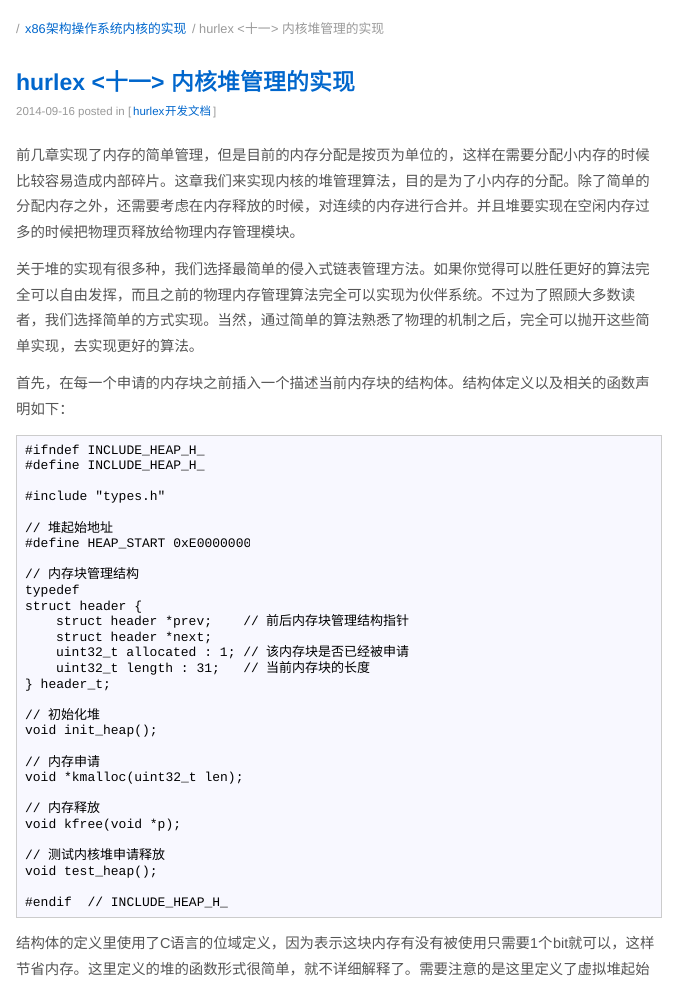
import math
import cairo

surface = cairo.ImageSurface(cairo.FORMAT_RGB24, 678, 981)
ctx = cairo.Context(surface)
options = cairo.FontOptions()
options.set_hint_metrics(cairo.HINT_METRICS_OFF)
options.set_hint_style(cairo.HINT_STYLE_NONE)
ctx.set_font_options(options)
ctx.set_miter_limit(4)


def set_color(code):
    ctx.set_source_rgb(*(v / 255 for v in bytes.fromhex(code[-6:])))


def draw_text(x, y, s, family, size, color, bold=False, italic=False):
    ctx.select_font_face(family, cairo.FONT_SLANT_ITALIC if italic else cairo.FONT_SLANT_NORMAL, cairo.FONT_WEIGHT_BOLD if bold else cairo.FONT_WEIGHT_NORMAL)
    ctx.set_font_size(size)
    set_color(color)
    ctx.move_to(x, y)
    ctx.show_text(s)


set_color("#ffffff")
ctx.paint()
draw_text(16, 33, "/", "Liberation Sans", 12.75, "#999999")
draw_text(25, 33, "x86", "Liberation Sans", 12.75, "#0066cc")
draw_text(46, 33, "架构操作系统内核的实现", "Noto Sans CJK SC", 12.75, "#0066cc")
draw_text(192, 33, "/ hurlex <", "Liberation Sans", 12.75, "#999999")
draw_text(245, 33, "十一", "Noto Sans CJK SC", 12.75, "#999999")
draw_text(271, 33, ">", "Liberation Sans", 12.75, "#999999")
draw_text(282, 33, "内核堆管理的实现", "Noto Sans CJK SC", 12.75, "#999999")
draw_text(16, 90, "hurlex <", "Liberation Sans", 23, "#0066cc", bold=True)
draw_text(105, 90, "十一", "Noto Sans CJK SC", 23, "#0066cc", bold=True)
draw_text(151, 90, ">", "Liberation Sans", 23, "#0066cc", bold=True)
draw_text(171, 90, "内核堆管理的实现", "Noto Sans CJK SC", 23, "#0066cc", bold=True)
draw_text(16, 115, "2014-09-16 posted in [", "Liberation Sans", 11.5, "#999999")
draw_text(133, 115, "hurlex", "Liberation Sans", 11.5, "#0066cc")
draw_text(165, 115, "开发文档", "Noto Sans CJK SC", 11.5, "#0066cc")
draw_text(213, 115, "]", "Liberation Sans", 11.5, "#999999")
draw_text(16, 160, "前几章实现了内存的简单管理，但是目前的内存分配是按页为单位的，这样在需要分配小内存的时候", "Noto Sans CJK SC", 14.4, "#555555")
draw_text(16, 186, "比较容易造成内部碎片。这章我们来实现内核的堆管理算法，目的是为了小内存的分配。除了简单的", "Noto Sans CJK SC", 14.4, "#555555")
draw_text(16, 211, "分配内存之外，还需要考虑在内存释放的时候，对连续的内存进行合并。并且堆要实现在空闲内存过", "Noto Sans CJK SC", 14.4, "#555555")
draw_text(16, 237, "多的时候把物理页释放给物理内存管理模块。", "Noto Sans CJK SC", 14.4, "#555555")
draw_text(16, 274, "关于堆的实现有很多种，我们选择最简单的侵入式链表管理方法。如果你觉得可以胜任更好的算法完", "Noto Sans CJK SC", 14.4, "#555555")
draw_text(16, 300, "全可以自由发挥，而且之前的物理内存管理算法完全可以实现为伙伴系统。不过为了照顾大多数读", "Noto Sans CJK SC", 14.4, "#555555")
draw_text(16, 325, "者，我们选择简单的方式实现。当然，通过简单的算法熟悉了物理的机制之后，完全可以抛开这些简", "Noto Sans CJK SC", 14.4, "#555555")
draw_text(16, 351, "单实现，去实现更好的算法。", "Noto Sans CJK SC", 14.4, "#555555")
draw_text(16, 388, "首先，在每一个申请的内存块之前插入一个描述当前内存块的结构体。结构体定义以及相关的函数声", "Noto Sans CJK SC", 14.4, "#555555")
draw_text(16, 414, "明如下：", "Noto Sans CJK SC", 14.4, "#555555")
set_color("#f8f8ff")
ctx.rectangle(16.5, 435.5, 645, 482)
ctx.fill_preserve()
set_color("#cccccc")
ctx.set_line_width(1)
ctx.stroke()
draw_text(25, 454, "#ifndef INCLUDE_HEAP_H_", "Liberation Mono", 13, "#000000")
draw_text(25, 469, "#define INCLUDE_HEAP_H_", "Liberation Mono", 13, "#000000")
draw_text(25, 500, "#include \"types.h\"", "Liberation Mono", 13, "#000000")
draw_text(25, 532, "//", "Liberation Mono", 13, "#000000")
draw_text(48, 532, "堆起始地址", "Noto Sans CJK SC", 13, "#000000")
draw_text(25, 547, "#define HEAP_START 0xE0000000", "Liberation Mono", 13, "#000000")
draw_text(25, 578, "//", "Liberation Mono", 13, "#000000")
draw_text(48, 578, "内存块管理结构", "Noto Sans CJK SC", 13, "#000000")
draw_text(25, 594, "typedef", "Liberation Mono", 13, "#000000")
draw_text(25, 610, "struct header {", "Liberation Mono", 13, "#000000")
draw_text(56, 625, "struct header *prev;    //", "Liberation Mono", 13, "#000000")
draw_text(266, 625, "前后内存块管理结构指针", "Noto Sans CJK SC", 13, "#000000")
draw_text(56, 641, "struct header *next;", "Liberation Mono", 13, "#000000")
draw_text(56, 656, "uint32_t allocated : 1; //", "Liberation Mono", 13, "#000000")
draw_text(266, 656, "该内存块是否已经被申请", "Noto Sans CJK SC", 13, "#000000")
draw_text(56, 672, "uint32_t length : 31;   //", "Liberation Mono", 13, "#000000")
draw_text(266, 672, "当前内存块的长度", "Noto Sans CJK SC", 13, "#000000")
draw_text(25, 688, "} header_t;", "Liberation Mono", 13, "#000000")
draw_text(25, 719, "//", "Liberation Mono", 13, "#000000")
draw_text(48, 719, "初始化堆", "Noto Sans CJK SC", 13, "#000000")
draw_text(25, 734, "void init_heap();", "Liberation Mono", 13, "#000000")
draw_text(25, 766, "//", "Liberation Mono", 13, "#000000")
draw_text(48, 766, "内存申请", "Noto Sans CJK SC", 13, "#000000")
draw_text(25, 781, "void *kmalloc(uint32_t len);", "Liberation Mono", 13, "#000000")
draw_text(25, 812, "//", "Liberation Mono", 13, "#000000")
draw_text(48, 812, "内存释放", "Noto Sans CJK SC", 13, "#000000")
draw_text(25, 828, "void kfree(void *p);", "Liberation Mono", 13, "#000000")
draw_text(25, 859, "//", "Liberation Mono", 13, "#000000")
draw_text(48, 859, "测试内核堆申请释放", "Noto Sans CJK SC", 13, "#000000")
draw_text(25, 875, "void test_heap();", "Liberation Mono", 13, "#000000")
draw_text(25, 906, "#endif  // INCLUDE_HEAP_H_", "Liberation Mono", 13, "#000000")
draw_text(16, 948, "结构体的定义里使用了", "Noto Sans CJK SC", 14.4, "#555555")
draw_text(160, 948, "C", "Liberation Sans", 14.4, "#555555")
draw_text(170, 948, "语言的位域定义，因为表示这块内存有没有被使用只需要", "Noto Sans CJK SC", 14.4, "#555555")
draw_text(530, 948, "1", "Liberation Sans", 14.4, "#555555")
draw_text(538, 948, "个", "Noto Sans CJK SC", 14.4, "#555555")
draw_text(553, 948, "bit", "Liberation Sans", 14.4, "#555555")
draw_text(568, 948, "就可以，这样", "Noto Sans CJK SC", 14.4, "#555555")
draw_text(16, 974, "节省内存。这里定义的堆的函数形式很简单，就不详细解释了。需要注意的是这里定义了虚拟堆起始", "Noto Sans CJK SC", 14.4, "#555555")
surface.write_to_png("output.png")
